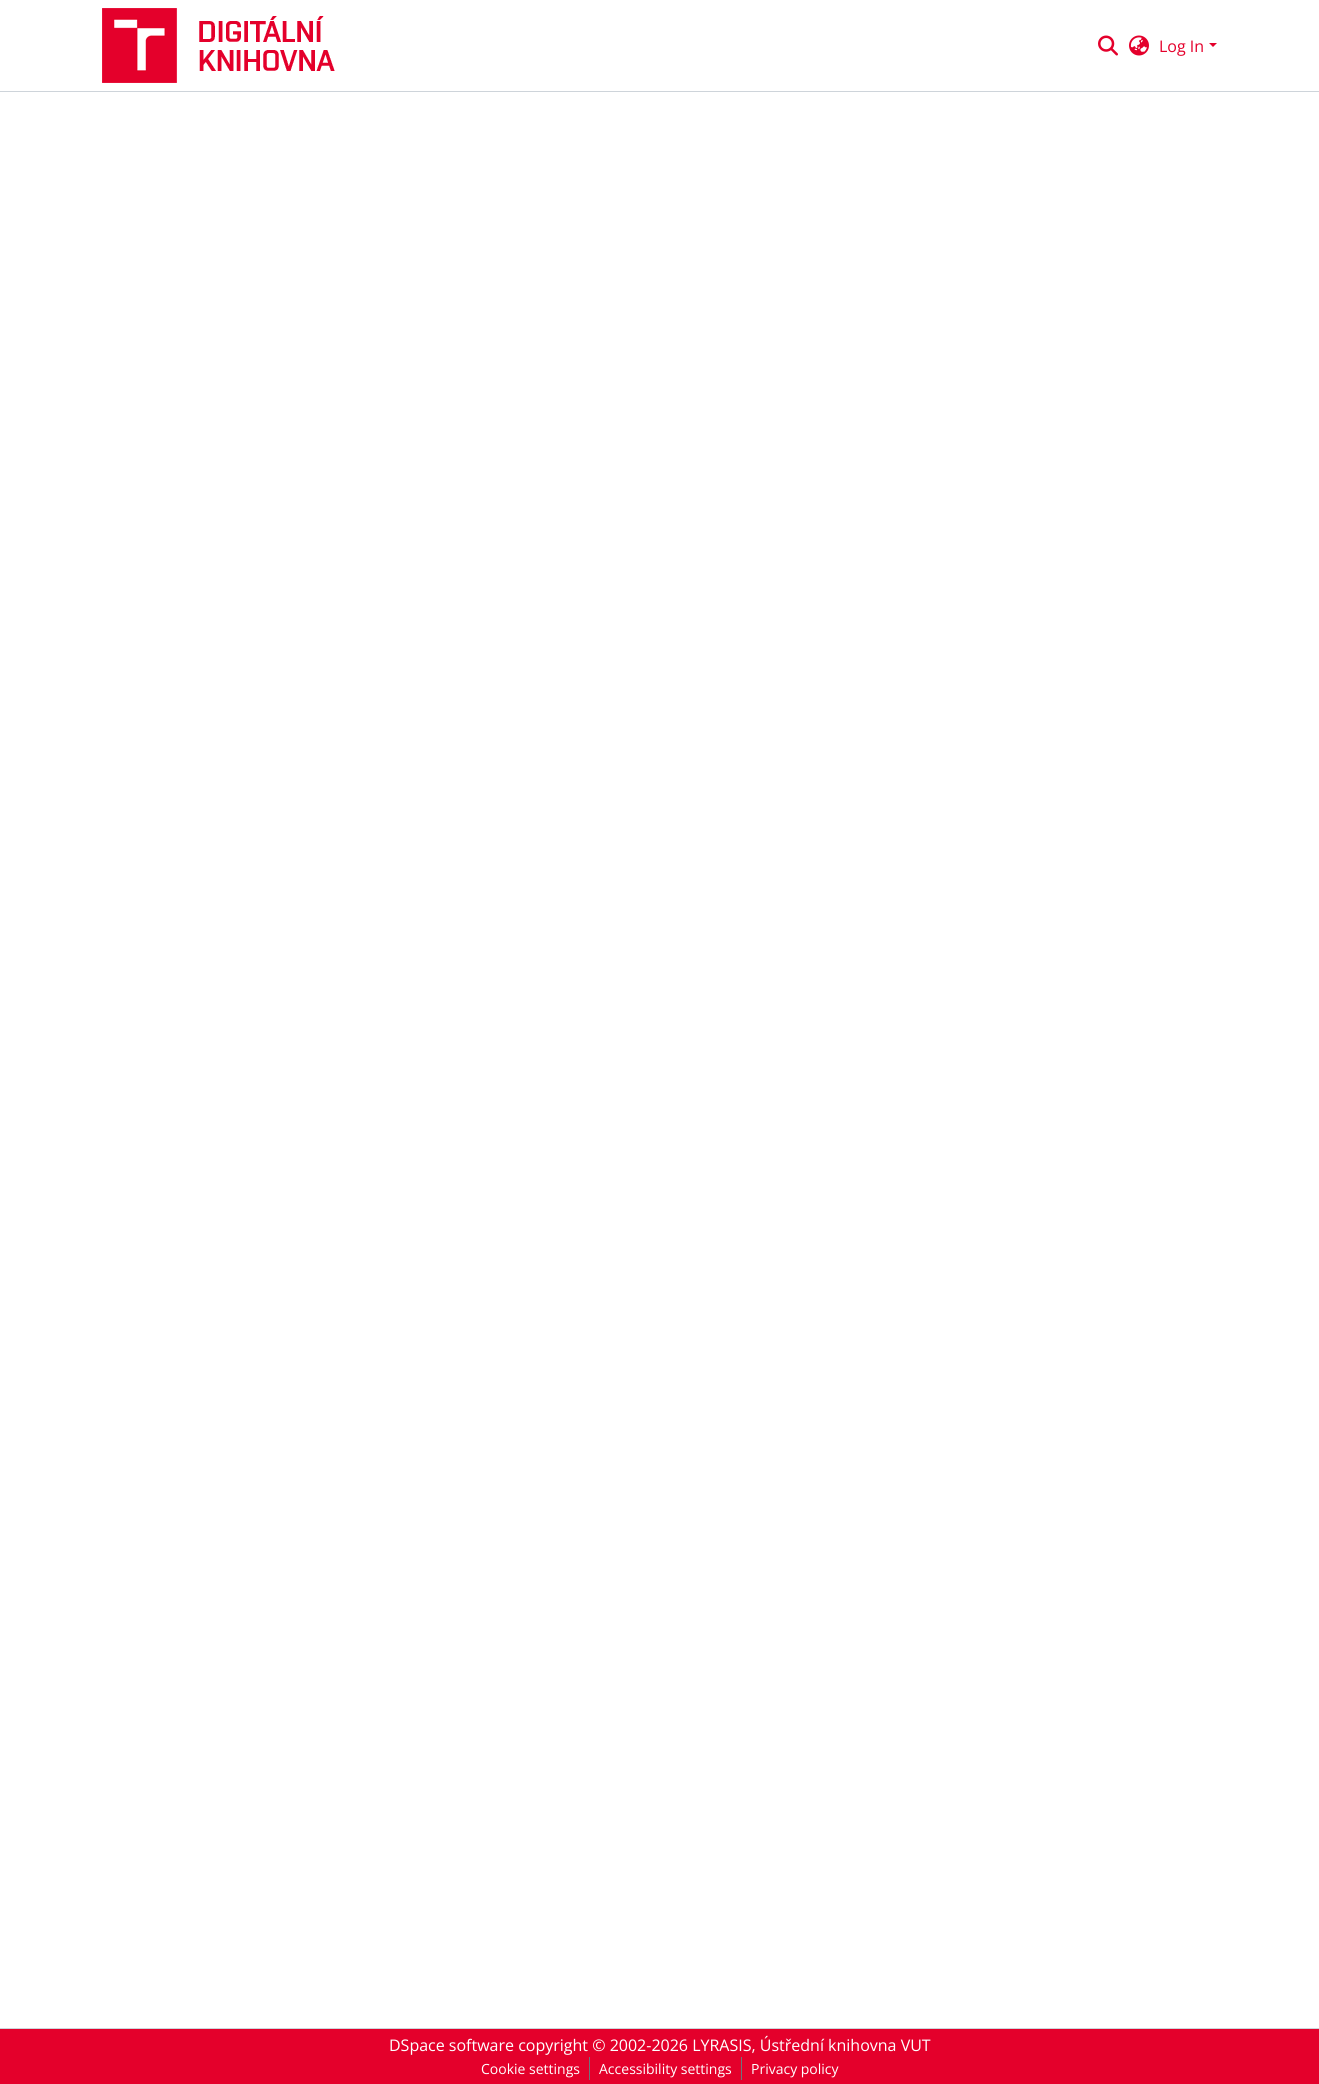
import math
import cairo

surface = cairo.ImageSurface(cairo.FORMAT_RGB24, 1319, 2084)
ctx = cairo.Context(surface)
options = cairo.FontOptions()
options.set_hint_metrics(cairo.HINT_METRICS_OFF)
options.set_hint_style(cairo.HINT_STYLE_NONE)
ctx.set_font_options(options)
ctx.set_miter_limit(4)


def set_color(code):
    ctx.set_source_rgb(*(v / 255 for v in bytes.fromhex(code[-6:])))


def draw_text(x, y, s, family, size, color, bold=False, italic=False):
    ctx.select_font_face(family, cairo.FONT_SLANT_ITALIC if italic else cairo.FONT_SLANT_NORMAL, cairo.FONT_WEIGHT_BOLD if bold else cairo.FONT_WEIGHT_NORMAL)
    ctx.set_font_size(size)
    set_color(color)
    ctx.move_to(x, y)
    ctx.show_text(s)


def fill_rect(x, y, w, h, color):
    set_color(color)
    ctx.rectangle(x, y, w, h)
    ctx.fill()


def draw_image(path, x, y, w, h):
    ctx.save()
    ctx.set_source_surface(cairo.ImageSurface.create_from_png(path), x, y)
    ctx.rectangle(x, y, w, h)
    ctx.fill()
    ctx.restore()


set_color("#ffffff")
ctx.paint()
fill_rect(0, 91, 1319, 1, "#ced4da")
draw_image("assets/img1.png", 102, 8, 233, 75)
draw_image("assets/img2.png", 1098, 35, 20, 21)
draw_image("assets/img3.png", 1129, 35, 20, 21)
draw_text(1159, 52, "Log In", "Open Sans", 16, "#e4002b")
ctx.new_path()
ctx.move_to(1209, 43)
ctx.line_to(1217, 43)
ctx.line_to(1213, 47)
ctx.close_path()
ctx.fill()
fill_rect(0, 2029, 1319, 55, "#e4002b")
fill_rect(0, 2028, 1319, 1, "#ced4da")
draw_text(389, 2051, "DSpace software copyright © 2002-2026 LYRASIS, Ústřední knihovna VUT", "Open Sans", 16, "#ffffff")
draw_text(481, 2074, "Cookie settings", "Open Sans", 14, "#ffffff")
fill_rect(589, 2057, 1, 23, "#6c757d")
draw_text(599, 2074, "Accessibility settings", "Open Sans", 14, "#ffffff")
fill_rect(741, 2057, 1, 23, "#6c757d")
draw_text(751, 2074, "Privacy policy", "Open Sans", 14, "#ffffff")
surface.write_to_png("output.png")
